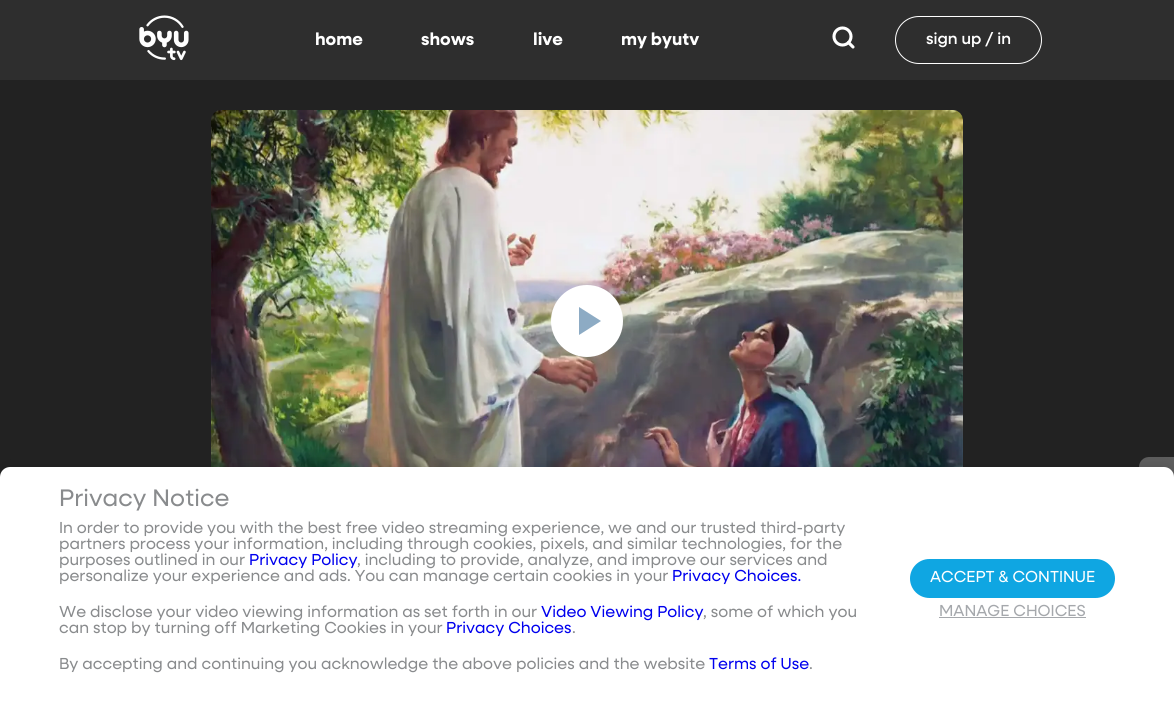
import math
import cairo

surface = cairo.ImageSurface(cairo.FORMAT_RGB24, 1174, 713)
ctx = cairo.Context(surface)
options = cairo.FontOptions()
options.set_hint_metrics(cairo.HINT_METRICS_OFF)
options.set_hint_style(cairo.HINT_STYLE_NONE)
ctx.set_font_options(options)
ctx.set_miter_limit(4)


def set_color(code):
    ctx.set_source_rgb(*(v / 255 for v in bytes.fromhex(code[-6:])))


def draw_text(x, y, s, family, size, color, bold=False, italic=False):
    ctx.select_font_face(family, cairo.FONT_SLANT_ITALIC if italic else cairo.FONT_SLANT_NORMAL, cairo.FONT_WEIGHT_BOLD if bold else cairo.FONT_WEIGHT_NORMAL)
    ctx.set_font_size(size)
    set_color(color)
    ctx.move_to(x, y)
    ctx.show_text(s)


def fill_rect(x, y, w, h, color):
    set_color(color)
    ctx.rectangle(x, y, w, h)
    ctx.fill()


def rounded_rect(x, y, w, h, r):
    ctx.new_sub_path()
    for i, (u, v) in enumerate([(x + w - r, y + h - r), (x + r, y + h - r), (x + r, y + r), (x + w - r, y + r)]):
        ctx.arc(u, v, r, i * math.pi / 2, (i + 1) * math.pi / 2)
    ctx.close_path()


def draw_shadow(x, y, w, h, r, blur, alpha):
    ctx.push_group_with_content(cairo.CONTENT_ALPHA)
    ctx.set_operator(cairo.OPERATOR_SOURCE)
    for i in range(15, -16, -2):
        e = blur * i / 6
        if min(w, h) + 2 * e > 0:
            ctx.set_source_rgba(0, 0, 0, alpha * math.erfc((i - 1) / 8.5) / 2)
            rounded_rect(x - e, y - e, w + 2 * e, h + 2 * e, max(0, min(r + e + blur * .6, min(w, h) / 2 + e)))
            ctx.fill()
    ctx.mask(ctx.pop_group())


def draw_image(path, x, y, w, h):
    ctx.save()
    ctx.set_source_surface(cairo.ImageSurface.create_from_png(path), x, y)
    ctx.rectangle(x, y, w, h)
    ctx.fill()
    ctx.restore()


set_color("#222222")
ctx.paint()
fill_rect(0, 0, 1174, 80, "#2e2e2e")
draw_image("assets/img1.png", 139, 15, 50, 46)
draw_text(315, 45, "home", "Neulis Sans", 17.5, "#ffffff", bold=True)
draw_text(421, 45, "shows", "Neulis Sans", 17.5, "#ffffff", bold=True)
draw_text(533, 45, "live", "Neulis Sans", 17.5, "#ffffff", bold=True)
draw_text(621, 45, "my byutv", "Neulis Sans", 17.5, "#ffffff", bold=True)
ctx.new_path()
ctx.arc(842.5, 36.5, 8.5, 0, 2 * math.pi)
ctx.set_line_width(3.1)
ctx.stroke()
ctx.new_path()
ctx.move_to(853, 47)
ctx.line_to(848.5, 42.5)
ctx.set_line_cap(cairo.LINE_CAP_ROUND)
ctx.set_line_join(cairo.LINE_JOIN_ROUND)
ctx.stroke()
rounded_rect(895.5, 16.5, 146, 47, 23.5)
ctx.set_line_width(1)
ctx.set_line_cap(cairo.LINE_CAP_BUTT)
ctx.set_line_join(cairo.LINE_JOIN_MITER)
ctx.stroke()
draw_text(926, 44, "sign up / in", "Neulis Sans Medium", 16, "#ffffff")
draw_image("assets/img2.png", 211, 110, 752, 357)
ctx.arc(587, 321, 35, 0, 2 * math.pi)
ctx.fill_preserve()
ctx.set_line_width(2)
ctx.stroke()
set_color("#8dabc4")
ctx.new_path()
ctx.move_to(579, 307)
ctx.line_to(579, 335)
ctx.line_to(601, 321)
ctx.close_path()
ctx.fill()
set_color("#5d5d5d")
ctx.new_path()
ctx.move_to(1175, 606)
ctx.line_to(1149, 606)
ctx.curve_to(1143, 606, 1139, 602, 1139, 596)
ctx.line_to(1139, 467)
ctx.curve_to(1139, 462, 1143, 457, 1149, 457)
ctx.line_to(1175, 457)
ctx.close_path()
ctx.fill()
set_color("#000000")
draw_shadow(0, 465, 1174, 246, 10, 5, 0.1)
set_color("#ffffff")
ctx.new_path()
ctx.move_to(10, 467)
ctx.line_to(1164, 467)
ctx.curve_to(1169.5, 467, 1174, 471.5, 1174, 477)
ctx.line_to(1174, 713)
ctx.line_to(0, 713)
ctx.line_to(0, 477)
ctx.curve_to(0, 471.5, 4.5, 467, 10, 467)
ctx.close_path()
ctx.fill()
draw_text(59, 506, "Privacy Notice", "Neulis Sans", 24, "#898b8d")
draw_text(59, 533, "In order to provide you with the best free video streaming experience, we and our trusted third-party", "Neulis Sans", 16, "#898b8d")
draw_text(59, 549, "partners process your information, including through cookies, pixels, and similar technologies, for the", "Neulis Sans", 16, "#898b8d")
draw_text(59, 565, "purposes outlined in our", "Neulis Sans", 16, "#898b8d")
draw_text(249, 565, "Privacy Policy", "Neulis Sans", 16, "#0000ee")
draw_text(357, 565, ", including to provide, analyze, and improve our services and", "Neulis Sans", 16, "#898b8d")
draw_text(59, 581, "personalize your experience and ads. You can manage certain cookies in your", "Neulis Sans", 16, "#898b8d")
draw_text(672, 581, "Privacy Choices.", "Neulis Sans", 16, "#0000ee")
draw_text(59, 617, "We disclose your video viewing information as set forth in our", "Neulis Sans", 16, "#898b8d")
draw_text(541, 617, "Video Viewing Policy", "Neulis Sans", 16, "#0000ee")
draw_text(703, 617, ", some of which you", "Neulis Sans", 16, "#898b8d")
draw_text(59, 633, "can stop by turning off Marketing Cookies in your", "Neulis Sans", 16, "#898b8d")
draw_text(446, 633, "Privacy Choices", "Neulis Sans", 16, "#0000ee")
draw_text(572, 633, ".", "Neulis Sans", 16, "#898b8d")
draw_text(59, 669, "By accepting and continuing you acknowledge the above policies and the website", "Neulis Sans", 16, "#898b8d")
draw_text(709, 669, "Terms of Use", "Neulis Sans", 16, "#0000ee")
draw_text(809, 669, ".", "Neulis Sans", 16, "#898b8d")
set_color("#0fa6e2")
rounded_rect(910, 559, 205, 39, 19.5)
ctx.fill()
draw_text(930, 582, "ACCEPT & CONTINUE", "Neulis Sans", 16, "#ffffff")
draw_text(939, 616, "MANAGE CHOICES", "Neulis Sans", 16, "#a5a8ac")
fill_rect(939, 617, 147, 1, "#a5a8ac")
surface.write_to_png("output.png")
